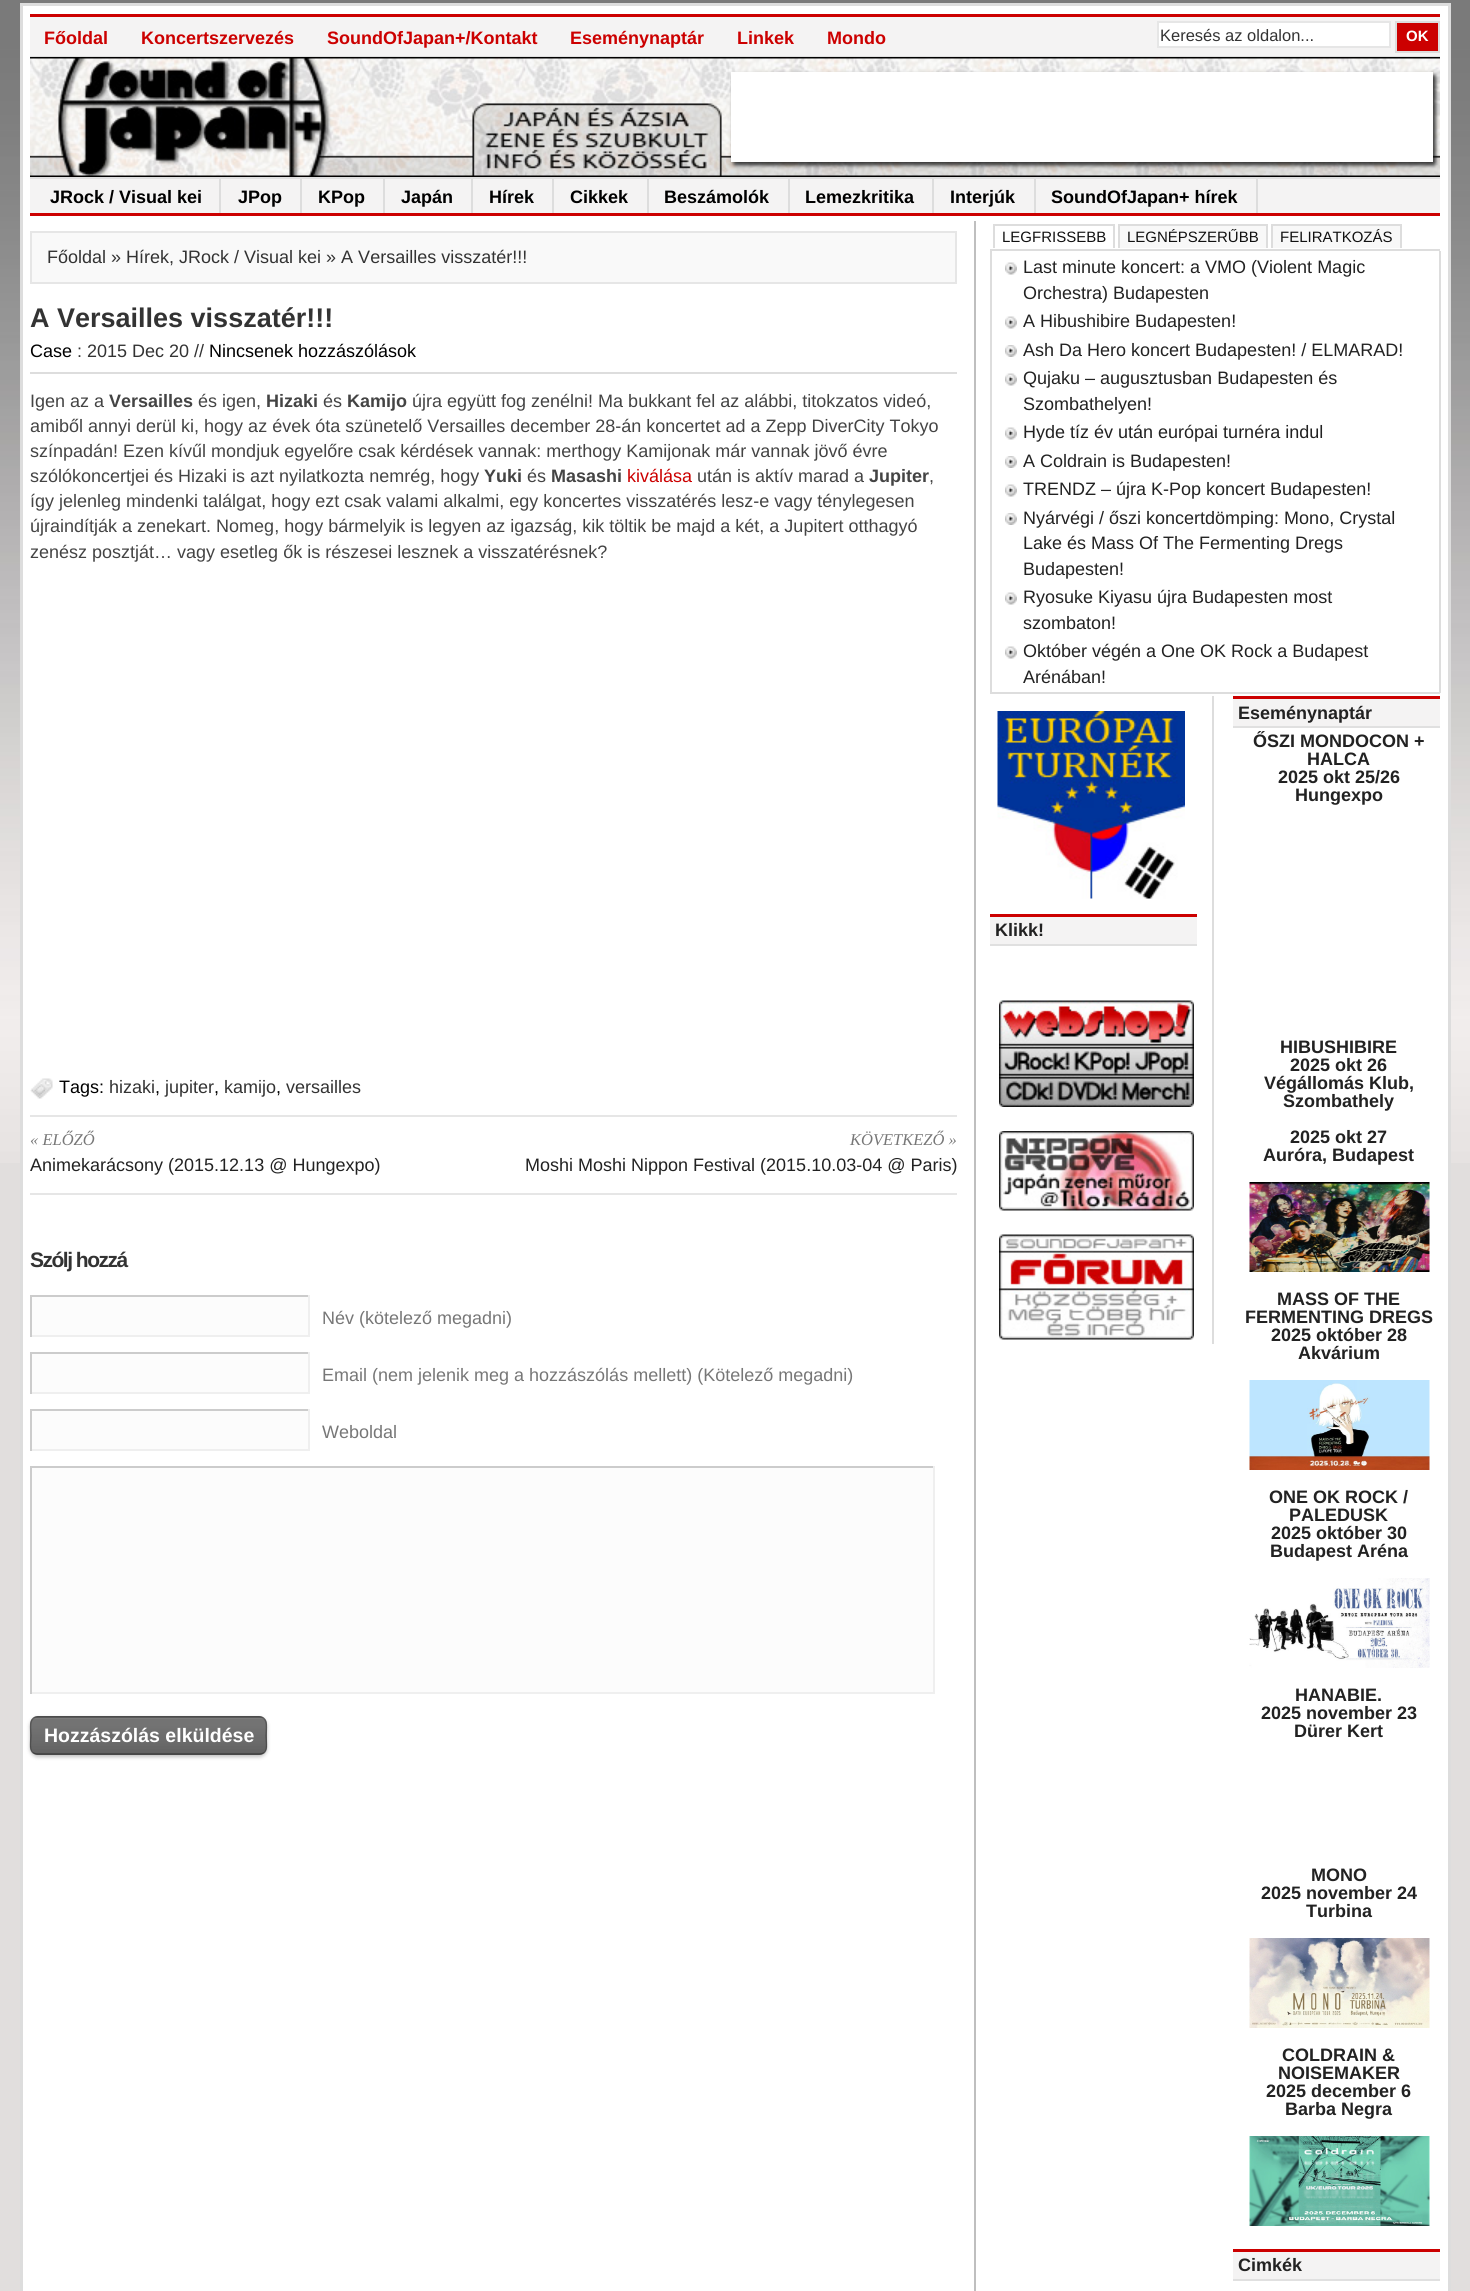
import math
import cairo

surface = cairo.ImageSurface(cairo.FORMAT_RGB24, 1470, 2291)
ctx = cairo.Context(surface)
options = cairo.FontOptions()
options.set_hint_metrics(cairo.HINT_METRICS_OFF)
options.set_hint_style(cairo.HINT_STYLE_NONE)
ctx.set_font_options(options)
ctx.set_miter_limit(4)


def set_color(code):
    ctx.set_source_rgb(*(v / 255 for v in bytes.fromhex(code[-6:])))


def draw_text(x, y, s, family, size, color, bold=False, italic=False):
    ctx.select_font_face(family, cairo.FONT_SLANT_ITALIC if italic else cairo.FONT_SLANT_NORMAL, cairo.FONT_WEIGHT_BOLD if bold else cairo.FONT_WEIGHT_NORMAL)
    ctx.set_font_size(size)
    set_color(color)
    ctx.move_to(x, y)
    ctx.show_text(s)


def draw_spaced(x, y, s, letter, word):
    ctx.move_to(x, y)
    for ch in s:
        ctx.show_text(ch)
        ctx.rel_move_to(letter + word * (ch == ' '), 0)


def fill_rect(x, y, w, h, color):
    set_color(color)
    ctx.rectangle(x, y, w, h)
    ctx.fill()


def rounded_rect(x, y, w, h, r):
    ctx.new_sub_path()
    for i, (u, v) in enumerate([(x + w - r, y + h - r), (x + r, y + h - r), (x + r, y + r), (x + w - r, y + r)]):
        ctx.arc(u, v, r, i * math.pi / 2, (i + 1) * math.pi / 2)
    ctx.close_path()


def draw_shadow(x, y, w, h, r, blur, alpha):
    ctx.push_group_with_content(cairo.CONTENT_ALPHA)
    ctx.set_operator(cairo.OPERATOR_SOURCE)
    for i in range(15, -16, -2):
        e = blur * i / 6
        if min(w, h) + 2 * e > 0:
            ctx.set_source_rgba(0, 0, 0, alpha * math.erfc((i - 1) / 8.5) / 2)
            rounded_rect(x - e, y - e, w + 2 * e, h + 2 * e, max(0, min(r + e + blur * .6, min(w, h) / 2 + e)))
            ctx.fill()
    ctx.mask(ctx.pop_group())


def draw_image(path, x, y, w, h):
    ctx.save()
    ctx.set_source_surface(cairo.ImageSurface.create_from_png(path), x, y)
    ctx.rectangle(x, y, w, h)
    ctx.fill()
    ctx.restore()


set_color("#e1dedd")
ctx.paint()
draw_image("assets/img1.png", 0, 0, 1470, 1163)
set_color("#ffffff")
ctx.rectangle(21.5, 4.5, 1428, 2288)
ctx.fill_preserve()
set_color("#dddddd")
ctx.set_line_width(3)
ctx.stroke()
fill_rect(30, 17, 1410, 39, "#f4f3f3")
fill_rect(30, 14, 1410, 3, "#cc0000")
fill_rect(30, 56, 1410, 1, "#e0e0e0")
draw_text(44, 44, "Főoldal", "Liberation Sans", 18, "#cc0000", bold=True)
draw_text(141, 44, "Koncertszervezés", "Liberation Sans", 18, "#cc0000", bold=True)
draw_text(327, 44, "SoundOfJapan+/Kontakt", "Liberation Sans", 18, "#cc0000", bold=True)
draw_text(570, 44, "Eseménynaptár", "Liberation Sans", 18, "#cc0000", bold=True)
draw_text(737, 44, "Linkek", "Liberation Sans", 18, "#cc0000", bold=True)
draw_text(827, 44, "Mondo", "Liberation Sans", 18, "#cc0000", bold=True)
set_color("#ffffff")
ctx.rectangle(1158, 22, 232, 25)
ctx.fill_preserve()
set_color("#e6e6e6")
ctx.set_line_width(2)
ctx.stroke()
draw_text(1160, 41, "Keresés az oldalon...", "Liberation Sans", 16.5, "#333333")
set_color("#cc0000")
ctx.rectangle(1396, 22, 43, 30)
ctx.fill_preserve()
set_color("#dddddd")
ctx.stroke()
draw_text(1406, 41, "OK", "Liberation Sans", 15, "#ffffff", bold=True)
draw_image("assets/img2.png", 30, 57, 1410, 120)
fill_rect(731, 72, 702, 90, "#ffffff")
fill_rect(30, 179, 1410, 34, "#f4f3f3")
fill_rect(30, 177, 1410, 2, "#e0e0e0")
fill_rect(30, 213, 1410, 3, "#cc0000")
fill_rect(219, 179, 2, 34, "#dddddd")
draw_text(50, 203, "JRock / Visual kei", "Liberation Sans", 18, "#000000", bold=True)
fill_rect(300, 179, 2, 34, "#dddddd")
draw_text(238, 203, "JPop", "Liberation Sans", 18, "#000000", bold=True)
fill_rect(383, 179, 2, 34, "#dddddd")
draw_text(318, 203, "KPop", "Liberation Sans", 18, "#000000", bold=True)
fill_rect(471, 179, 2, 34, "#dddddd")
draw_text(401, 203, "Japán", "Liberation Sans", 18, "#000000", bold=True)
fill_rect(552, 179, 2, 34, "#dddddd")
draw_text(489, 203, "Hírek", "Liberation Sans", 18, "#000000", bold=True)
fill_rect(647, 179, 2, 34, "#dddddd")
draw_text(570, 203, "Cikkek", "Liberation Sans", 18, "#000000", bold=True)
fill_rect(788, 179, 2, 34, "#dddddd")
draw_text(664, 203, "Beszámolók", "Liberation Sans", 18, "#000000", bold=True)
fill_rect(932, 179, 2, 34, "#dddddd")
draw_text(805, 203, "Lemezkritika", "Liberation Sans", 18, "#000000", bold=True)
fill_rect(1034, 179, 2, 34, "#dddddd")
draw_text(950, 203, "Interjúk", "Liberation Sans", 18, "#000000", bold=True)
fill_rect(1256, 179, 2, 34, "#dddddd")
draw_text(1051, 203, "SoundOfJapan+ hírek", "Liberation Sans", 18, "#000000", bold=True)
set_color("#f9f9f9")
ctx.rectangle(31, 232, 925, 51)
ctx.fill_preserve()
set_color("#e6e6e6")
ctx.stroke()
draw_text(47, 263, "Főoldal » Hírek, JRock / Visual kei » A Versailles visszatér!!!", "Liberation Sans", 18, "#333333")
draw_text(30, 327, "A Versailles visszatér!!!", "Liberation Sans", 27, "#333333", bold=True)
fill_rect(30, 372, 927, 2, "#dddddd")
draw_text(30, 357, "Case", "Liberation Sans", 18, "#000000")
draw_text(77, 357, ": 2015 Dec 20 //", "Liberation Sans", 18, "#333333")
draw_text(209, 357, "Nincsenek hozzászólások", "Liberation Sans", 18, "#000000")
draw_text(30, 407, "Igen az a", "Liberation Sans", 18, "#444444")
draw_text(109, 407, "Versailles", "Liberation Sans", 18, "#444444", bold=True)
draw_text(198, 407, "és igen,", "Liberation Sans", 18, "#444444")
draw_text(266, 407, "Hizaki", "Liberation Sans", 18, "#444444", bold=True)
draw_text(323, 407, "és", "Liberation Sans", 18, "#444444")
draw_text(347, 407, "Kamijo", "Liberation Sans", 18, "#444444", bold=True)
draw_text(412, 407, "újra együtt fog zenélni! Ma bukkant fel az alábbi, titokzatos videó,", "Liberation Sans", 18, "#444444")
draw_text(30, 432, "amiből annyi derül ki, hogy az évek óta szünetelő Versailles december 28-án koncertet ad a Zepp DiverCity Tokyo", "Liberation Sans", 18, "#444444")
draw_text(30, 457, "színpadán! Ezen kívűl mondjuk egyelőre csak kérdések vannak: merthogy Kamijonak már vannak jövő évre", "Liberation Sans", 18, "#444444")
draw_text(30, 482, "szólókoncertjei és Hizaki is azt nyilatkozta nemrég, hogy", "Liberation Sans", 18, "#444444")
draw_text(484, 482, "Yuki", "Liberation Sans", 18, "#444444", bold=True)
draw_text(527, 482, "és", "Liberation Sans", 18, "#444444")
draw_text(551, 482, "Masashi", "Liberation Sans", 18, "#444444", bold=True)
draw_text(627, 482, "kiválása", "Liberation Sans", 18, "#cc0000")
draw_text(697, 482, "után is aktív marad a", "Liberation Sans", 18, "#444444")
draw_text(869, 482, "Jupiter", "Liberation Sans", 18, "#444444", bold=True)
draw_text(929, 482, ",", "Liberation Sans", 18, "#444444")
draw_text(30, 507, "így jelenleg mindenki találgat, hogy ezt csak valami alkalmi, egy koncertes visszatérés lesz-e vagy ténylegesen", "Liberation Sans", 18, "#444444")
draw_text(30, 532, "újraindítják a zenekart. Nomeg, hogy bármelyik is legyen az igazság, kik töltik be majd a két, a Jupitert otthagyó", "Liberation Sans", 18, "#444444")
draw_text(30, 558, "zenész posztját… vagy esetleg ők is részesei lesznek a visszatérésnek?", "Liberation Sans", 18, "#444444")
draw_image("assets/img3.png", 30, 1078, 23, 21)
draw_text(59, 1093, "Tags:", "Liberation Sans", 18, "#000000")
draw_text(109, 1093, "hizaki", "Liberation Sans", 18, "#333333")
draw_text(155, 1093, ",", "Liberation Sans", 18, "#000000")
draw_text(165, 1093, "jupiter", "Liberation Sans", 18, "#333333")
draw_text(214, 1093, ",", "Liberation Sans", 18, "#000000")
draw_text(224, 1093, "kamijo", "Liberation Sans", 18, "#333333")
draw_text(276, 1093, ",", "Liberation Sans", 18, "#000000")
draw_text(286, 1093, "versailles", "Liberation Sans", 18, "#333333")
fill_rect(30, 1115, 927, 2, "#e6e6e6")
draw_text(30, 1145, "« ELŐZŐ", "Liberation Serif", 16.5, "#777777", italic=True)
draw_text(30, 1171, "Animekarácsony (2015.12.13 @ Hungexpo)", "Liberation Sans", 18, "#222222")
draw_text(850, 1145, "KÖVETKEZŐ »", "Liberation Serif", 16.5, "#777777", italic=True)
draw_text(525, 1171, "Moshi Moshi Nippon Festival (2015.10.03-04 @ Paris)", "Liberation Sans", 18, "#222222")
fill_rect(30, 1193, 927, 2, "#e6e6e6")
ctx.select_font_face("Liberation Sans", cairo.FONT_SLANT_NORMAL, cairo.FONT_WEIGHT_BOLD)
ctx.set_font_size(21)
set_color("#333333")
draw_spaced(30, 1267, "Szólj hozzá", -1.5, 0)
fill_rect(32, 1297, 276, 38, "#fcfcfc")
fill_rect(30, 1295, 279, 2, "#cccccc")
fill_rect(308, 1295, 2, 42, "#efefef")
fill_rect(30, 1335, 279, 2, "#efefef")
fill_rect(30, 1295, 2, 42, "#cccccc")
draw_text(322, 1324, "Név (kötelező megadni)", "Liberation Sans", 18, "#777777")
fill_rect(32, 1354, 276, 38, "#fcfcfc")
fill_rect(30, 1352, 279, 2, "#cccccc")
fill_rect(308, 1352, 2, 42, "#efefef")
fill_rect(30, 1392, 279, 2, "#efefef")
fill_rect(30, 1352, 2, 42, "#cccccc")
draw_text(322, 1381, "Email (nem jelenik meg a hozzászólás mellett) (Kötelező megadni)", "Liberation Sans", 18, "#777777")
fill_rect(32, 1411, 276, 38, "#fcfcfc")
fill_rect(30, 1409, 279, 2, "#cccccc")
fill_rect(308, 1409, 2, 42, "#efefef")
fill_rect(30, 1449, 279, 2, "#efefef")
fill_rect(30, 1409, 2, 42, "#cccccc")
draw_text(322, 1438, "Weboldal", "Liberation Sans", 18, "#777777")
fill_rect(32, 1468, 901, 224, "#fcfcfc")
fill_rect(30, 1466, 905, 2, "#cccccc")
fill_rect(933, 1466, 2, 228, "#efefef")
fill_rect(30, 1692, 905, 2, "#efefef")
fill_rect(30, 1466, 2, 228, "#cccccc")
set_color("#000000")
draw_shadow(30, 1718, 237, 39, 8, 2, 0.25)
set_color("#666666")
rounded_rect(30, 1716, 237, 39, 8)
ctx.fill()
draw_image("assets/img4.png", 30, 1716, 237, 39)
ctx.new_path()
ctx.move_to(264.5, 1752.5)
ctx.curve_to(263, 1753.5, 261.5, 1754, 259.5, 1754)
ctx.line_to(37.5, 1754)
ctx.curve_to(35.5, 1754, 34, 1753.5, 32.5, 1752.5)
ctx.set_source_rgba(0, 0, 0, 0.35)
ctx.set_line_width(1.5)
ctx.stroke()
ctx.new_path()
ctx.move_to(32.5, 1752.5)
ctx.curve_to(29, 1749, 31, 1740, 31, 1735.5)
ctx.curve_to(31, 1730, 28, 1717, 37.5, 1717)
ctx.line_to(259.5, 1717)
ctx.curve_to(269, 1717, 266, 1730, 266, 1735.5)
ctx.curve_to(266, 1740, 268, 1749, 264.5, 1752.5)
ctx.set_source_rgba(0, 0, 0, 0.25)
ctx.stroke()
draw_text(44, 1742, "Hozzászólás elküldése", "Liberation Sans", 19.5, "#ffffff", bold=True)
fill_rect(974, 221, 2, 2070, "#bfbfbf")
fill_rect(990, 249, 450, 2, "#dddddd")
draw_text(1002, 242, "LEGFRISSEBB", "Liberation Sans", 15, "#111111")
fill_rect(993, 224, 122, 2, "#dddddd")
fill_rect(1113, 224, 2, 24, "#dddddd")
fill_rect(993, 224, 2, 24, "#dddddd")
fill_rect(1120, 226, 146, 22, "#f8f8f8")
draw_text(1127, 242, "LEGNÉPSZERŰBB", "Liberation Sans", 15, "#111111")
fill_rect(1118, 224, 150, 2, "#dddddd")
fill_rect(1266, 224, 2, 24, "#dddddd")
fill_rect(1118, 224, 2, 24, "#dddddd")
fill_rect(1273, 226, 127, 22, "#f8f8f8")
draw_text(1280, 242, "FELIRATKOZÁS", "Liberation Sans", 15, "#111111")
fill_rect(1271, 224, 130, 2, "#dddddd")
fill_rect(1400, 224, 2, 24, "#dddddd")
fill_rect(1271, 224, 2, 24, "#dddddd")
fill_rect(1439, 251, 2, 442, "#dddddd")
fill_rect(990, 692, 450, 2, "#dddddd")
fill_rect(990, 251, 2, 442, "#dddddd")
draw_image("assets/img5.png", 1005, 262, 12, 13)
draw_text(1023, 273, "Last minute koncert: a VMO (Violent Magic", "Liberation Sans", 18, "#222222")
draw_text(1023, 299, "Orchestra) Budapesten", "Liberation Sans", 18, "#222222")
draw_image("assets/img5.png", 1005, 316, 12, 13)
draw_text(1023, 327, "A Hibushibire Budapesten!", "Liberation Sans", 18, "#222222")
draw_image("assets/img6.png", 1005, 345, 12, 12)
draw_text(1023, 356, "Ash Da Hero koncert Budapesten! / ELMARAD!", "Liberation Sans", 18, "#222222")
draw_image("assets/img5.png", 1005, 373, 12, 13)
draw_text(1023, 384, "Qujaku – augusztusban Budapesten és", "Liberation Sans", 18, "#222222")
draw_text(1023, 410, "Szombathelyen!", "Liberation Sans", 18, "#222222")
draw_image("assets/img5.png", 1005, 427, 12, 13)
draw_text(1023, 438, "Hyde tíz év után európai turnéra indul", "Liberation Sans", 18, "#222222")
draw_image("assets/img6.png", 1005, 456, 12, 12)
draw_text(1023, 467, "A Coldrain is Budapesten!", "Liberation Sans", 18, "#222222")
draw_image("assets/img5.png", 1005, 484, 12, 13)
draw_text(1023, 495, "TRENDZ – újra K-Pop koncert Budapesten!", "Liberation Sans", 18, "#222222")
draw_image("assets/img6.png", 1005, 513, 12, 12)
draw_text(1023, 524, "Nyárvégi / őszi koncertdömping: Mono, Crystal", "Liberation Sans", 18, "#222222")
draw_text(1023, 549, "Lake és Mass Of The Fermenting Dregs", "Liberation Sans", 18, "#222222")
draw_text(1023, 575, "Budapesten!", "Liberation Sans", 18, "#222222")
draw_image("assets/img5.png", 1005, 592, 12, 13)
draw_text(1023, 603, "Ryosuke Kiyasu újra Budapesten most", "Liberation Sans", 18, "#222222")
draw_text(1023, 629, "szombaton!", "Liberation Sans", 18, "#222222")
draw_image("assets/img5.png", 1005, 646, 12, 13)
draw_text(1023, 657, "Október végén a One OK Rock a Budapest", "Liberation Sans", 18, "#222222")
draw_text(1023, 683, "Arénában!", "Liberation Sans", 18, "#222222")
fill_rect(1212, 696, 2, 648, "#dddddd")
draw_image("assets/img7.png", 997, 711, 188, 188)
fill_rect(990, 917, 207, 27, "#f4f3f3")
fill_rect(990, 914, 207, 3, "#cc0000")
fill_rect(990, 944, 207, 2, "#e0e0e0")
draw_text(995, 936, "Klikk!", "Liberation Sans", 18, "#222222", bold=True)
draw_image("assets/img8.png", 999, 1000, 195, 107)
draw_image("assets/img9.png", 999, 1131, 195, 80)
draw_image("assets/img10.png", 999, 1234, 195, 106)
fill_rect(1233, 699, 207, 27, "#f4f3f3")
fill_rect(1233, 696, 207, 3, "#cc0000")
fill_rect(1233, 726, 207, 2, "#e0e0e0")
draw_text(1238, 719, "Eseménynaptár", "Liberation Sans", 18, "#222222", bold=True)
draw_text(1253, 747, "ŐSZI MONDOCON +", "Liberation Sans", 18, "#222222", bold=True)
draw_text(1307, 765, "HALCA", "Liberation Sans", 18, "#222222", bold=True)
draw_text(1278, 783, "2025 okt 25/26", "Liberation Sans", 18, "#222222", bold=True)
draw_text(1295, 801, "Hungexpo", "Liberation Sans", 18, "#222222", bold=True)
draw_text(1280, 1053, "HIBUSHIBIRE", "Liberation Sans", 18, "#222222", bold=True)
draw_text(1290, 1071, "2025 okt 26", "Liberation Sans", 18, "#222222", bold=True)
draw_text(1264, 1089, "Végállomás Klub,", "Liberation Sans", 18, "#222222", bold=True)
draw_text(1283, 1107, "Szombathely", "Liberation Sans", 18, "#222222", bold=True)
draw_text(1290, 1143, "2025 okt 27", "Liberation Sans", 18, "#222222", bold=True)
draw_text(1263, 1161, "Auróra, Budapest", "Liberation Sans", 18, "#222222", bold=True)
draw_image("assets/img11.png", 1249, 1182, 181, 90)
draw_text(1277, 1305, "MASS OF THE", "Liberation Sans", 18, "#222222", bold=True)
draw_text(1245, 1323, "FERMENTING DREGS", "Liberation Sans", 18, "#222222", bold=True)
draw_text(1271, 1341, "2025 október 28", "Liberation Sans", 18, "#222222", bold=True)
draw_text(1298, 1359, "Akvárium", "Liberation Sans", 18, "#222222", bold=True)
draw_image("assets/img12.png", 1249, 1380, 181, 90)
draw_text(1269, 1503, "ONE OK ROCK /", "Liberation Sans", 18, "#222222", bold=True)
draw_text(1289, 1521, "PALEDUSK", "Liberation Sans", 18, "#222222", bold=True)
draw_text(1271, 1539, "2025 október 30", "Liberation Sans", 18, "#222222", bold=True)
draw_text(1270, 1557, "Budapest Aréna", "Liberation Sans", 18, "#222222", bold=True)
draw_image("assets/img13.png", 1249, 1578, 181, 90)
draw_text(1295, 1701, "HANABIE.", "Liberation Sans", 18, "#222222", bold=True)
draw_text(1261, 1719, "2025 november 23", "Liberation Sans", 18, "#222222", bold=True)
draw_text(1294, 1737, "Dürer Kert", "Liberation Sans", 18, "#222222", bold=True)
draw_text(1311, 1881, "MONO", "Liberation Sans", 18, "#222222", bold=True)
draw_text(1261, 1899, "2025 november 24", "Liberation Sans", 18, "#222222", bold=True)
draw_text(1306, 1917, "Turbina", "Liberation Sans", 18, "#222222", bold=True)
draw_image("assets/img14.png", 1249, 1938, 181, 90)
draw_text(1282, 2061, "COLDRAIN &", "Liberation Sans", 18, "#222222", bold=True)
draw_text(1278, 2079, "NOISEMAKER", "Liberation Sans", 18, "#222222", bold=True)
draw_text(1266, 2097, "2025 december 6", "Liberation Sans", 18, "#222222", bold=True)
draw_text(1285, 2115, "Barba Negra", "Liberation Sans", 18, "#222222", bold=True)
draw_image("assets/img15.png", 1249, 2136, 181, 90)
fill_rect(1233, 2252, 207, 27, "#f4f3f3")
fill_rect(1233, 2249, 207, 3, "#cc0000")
fill_rect(1233, 2279, 207, 2, "#e0e0e0")
draw_text(1238, 2271, "Cimkék", "Liberation Sans", 18, "#222222", bold=True)
surface.write_to_png("output.png")
